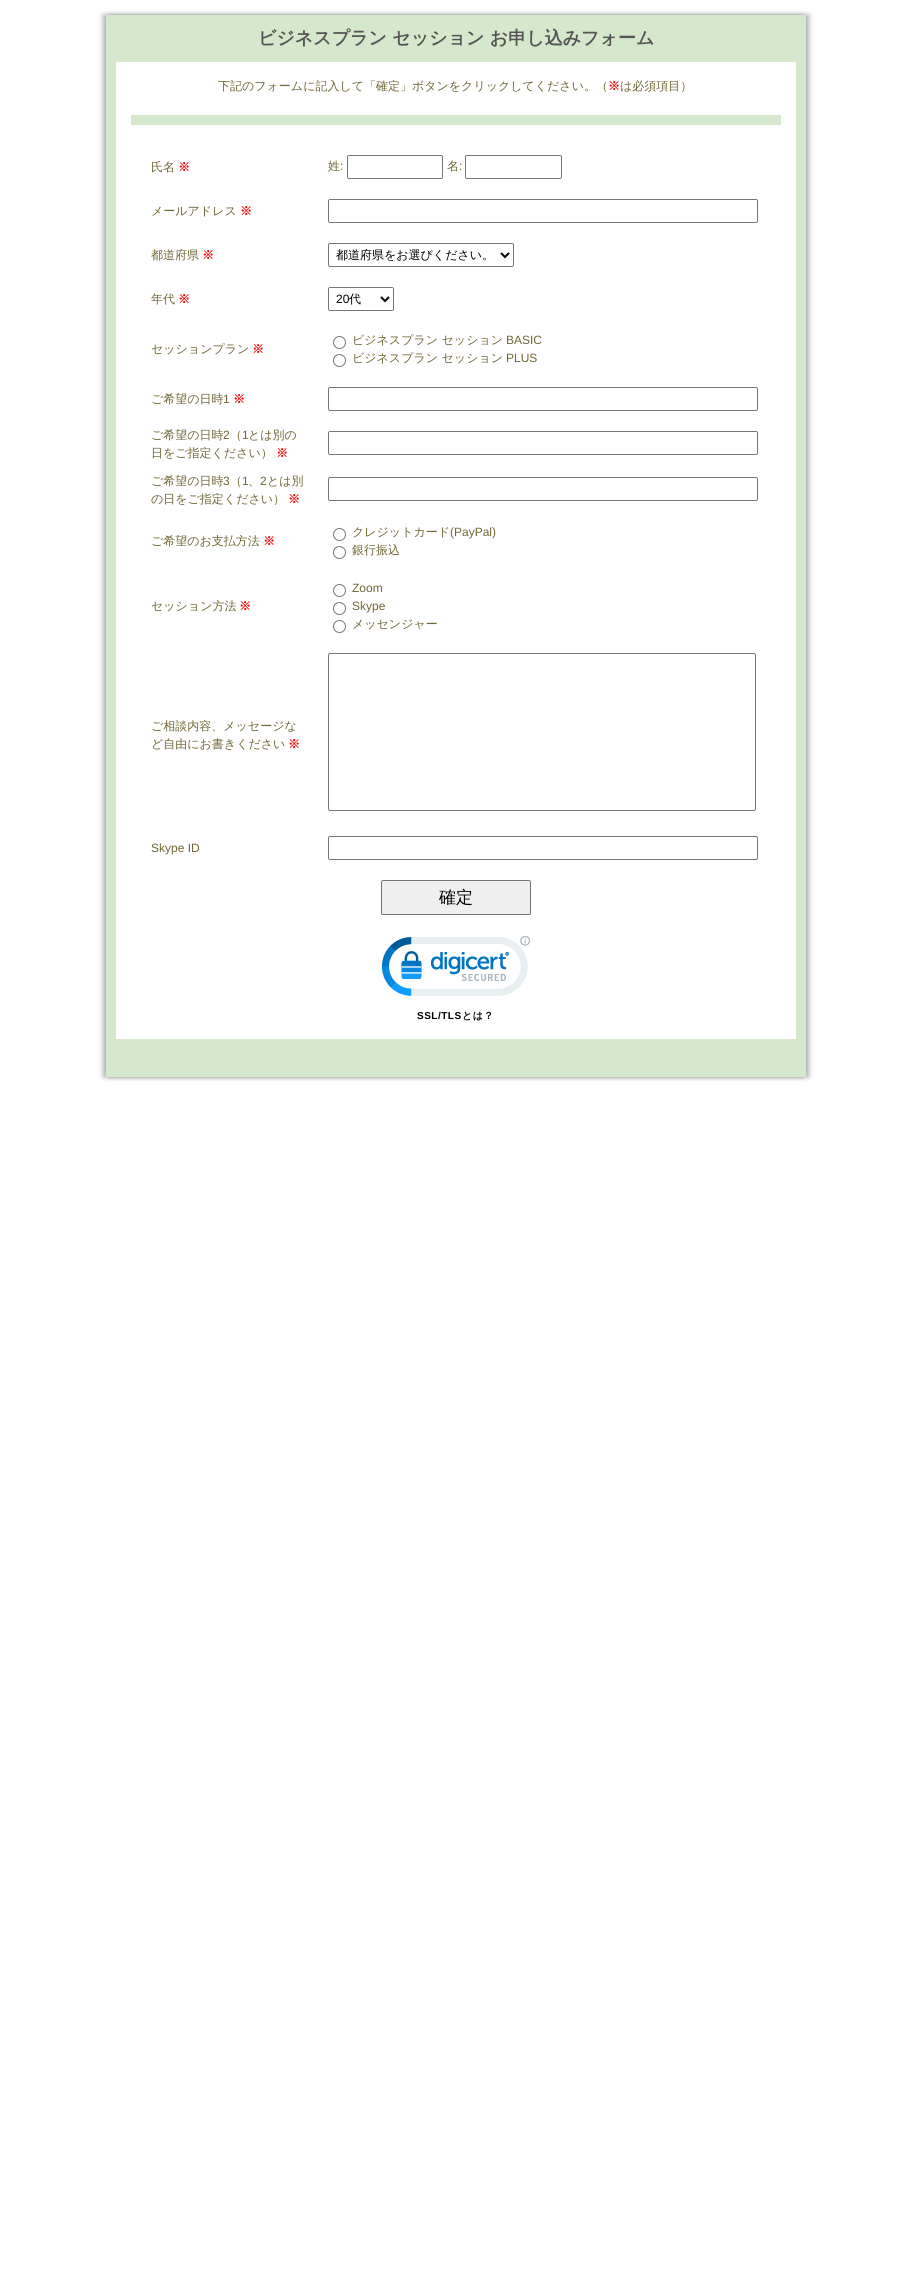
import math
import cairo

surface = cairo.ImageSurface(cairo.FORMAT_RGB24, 911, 2289)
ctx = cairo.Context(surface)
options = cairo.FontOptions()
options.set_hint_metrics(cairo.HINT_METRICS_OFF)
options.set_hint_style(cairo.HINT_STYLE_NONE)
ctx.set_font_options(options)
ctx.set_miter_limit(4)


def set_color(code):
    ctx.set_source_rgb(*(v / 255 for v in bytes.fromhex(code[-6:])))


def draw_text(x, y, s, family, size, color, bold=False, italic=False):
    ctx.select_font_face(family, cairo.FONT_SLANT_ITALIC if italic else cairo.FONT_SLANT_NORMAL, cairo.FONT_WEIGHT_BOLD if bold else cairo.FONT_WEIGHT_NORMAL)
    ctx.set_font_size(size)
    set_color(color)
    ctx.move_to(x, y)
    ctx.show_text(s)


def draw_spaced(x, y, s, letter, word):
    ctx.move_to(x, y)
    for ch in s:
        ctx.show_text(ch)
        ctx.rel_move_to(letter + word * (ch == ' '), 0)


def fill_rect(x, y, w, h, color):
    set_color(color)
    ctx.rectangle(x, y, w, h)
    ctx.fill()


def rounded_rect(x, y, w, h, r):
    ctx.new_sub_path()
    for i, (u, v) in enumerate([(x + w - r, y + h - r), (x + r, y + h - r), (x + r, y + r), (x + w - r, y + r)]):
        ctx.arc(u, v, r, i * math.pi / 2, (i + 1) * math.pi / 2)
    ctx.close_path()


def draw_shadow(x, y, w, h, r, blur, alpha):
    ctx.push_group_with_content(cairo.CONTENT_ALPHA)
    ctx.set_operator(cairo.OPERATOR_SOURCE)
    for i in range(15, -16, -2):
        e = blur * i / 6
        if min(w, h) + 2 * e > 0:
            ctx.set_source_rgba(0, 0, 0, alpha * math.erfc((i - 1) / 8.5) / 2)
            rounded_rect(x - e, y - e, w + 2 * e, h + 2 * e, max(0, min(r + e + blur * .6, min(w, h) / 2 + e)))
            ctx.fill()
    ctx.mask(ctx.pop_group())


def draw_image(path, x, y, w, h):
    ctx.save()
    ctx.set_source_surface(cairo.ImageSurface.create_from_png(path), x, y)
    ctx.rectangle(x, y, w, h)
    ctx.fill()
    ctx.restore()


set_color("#ffffff")
ctx.paint()
ctx.save()
ctx.set_fill_rule(cairo.FILL_RULE_EVEN_ODD)
ctx.new_path()
ctx.move_to(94, 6)
ctx.line_to(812, 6)
ctx.line_to(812, 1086)
ctx.line_to(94, 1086)
ctx.close_path()
ctx.move_to(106, 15)
ctx.line_to(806, 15)
ctx.line_to(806, 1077)
ctx.line_to(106, 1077)
ctx.close_path()
ctx.clip()
set_color("#000000")
draw_shadow(103, 15, 700, 1062, 0, 2.5, 0.3)
ctx.restore()
ctx.save()
ctx.set_fill_rule(cairo.FILL_RULE_EVEN_ODD)
ctx.new_path()
ctx.move_to(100, 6)
ctx.line_to(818, 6)
ctx.line_to(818, 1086)
ctx.line_to(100, 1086)
ctx.close_path()
ctx.move_to(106, 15)
ctx.line_to(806, 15)
ctx.line_to(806, 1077)
ctx.line_to(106, 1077)
ctx.close_path()
ctx.clip()
set_color("#000000")
draw_shadow(109, 15, 700, 1062, 0, 2.5, 0.3)
ctx.restore()
fill_rect(106, 15, 700, 47, "#d5e8cc")
draw_text(258, 44, "ビジネスプラン セッション お申し込みフォーム", "WenQuanYi Zen Hei", 18, "#555555", bold=True)
fill_rect(796, 62, 10, 977, "#d5e8cc")
fill_rect(106, 62, 10, 977, "#d5e8cc")
draw_text(218, 90, "下記のフォームに記入して「確定」ボタンをクリックしてください。（", "WenQuanYi Zen Hei Medium", 12, "#6f6735")
draw_text(608, 90, "※", "WenQuanYi Zen Hei", 12, "#ff0000", bold=True)
draw_text(620, 90, "は必須項目）", "WenQuanYi Zen Hei Medium", 12, "#6f6735")
fill_rect(131, 115, 650, 10, "#d5e8cc")
draw_text(151, 171, "氏名", "WenQuanYi Zen Hei Medium", 12, "#6f6735")
draw_text(178, 171, "※", "WenQuanYi Zen Hei", 12, "#ff0000", bold=True)
draw_text(328, 170, "姓", "WenQuanYi Zen Hei Medium", 12, "#6f6735")
draw_text(340, 170, ":", "Liberation Sans", 12, "#6f6735")
rounded_rect(347.5, 155.5, 95, 23, 1.5)
set_color("#767676")
ctx.set_line_width(1)
ctx.stroke()
draw_text(447, 170, "名", "WenQuanYi Zen Hei Medium", 12, "#6f6735")
draw_text(459, 170, ":", "Liberation Sans", 12, "#6f6735")
rounded_rect(465.5, 155.5, 96, 23, 1.5)
set_color("#767676")
ctx.stroke()
draw_text(151, 215, "メールアドレス", "WenQuanYi Zen Hei Medium", 12, "#6f6735")
draw_text(240, 215, "※", "WenQuanYi Zen Hei", 12, "#ff0000", bold=True)
rounded_rect(328.5, 199.5, 429, 23, 1.5)
set_color("#767676")
ctx.stroke()
draw_text(151, 259, "都道府県", "WenQuanYi Zen Hei Medium", 12, "#6f6735")
draw_text(202, 259, "※", "WenQuanYi Zen Hei", 12, "#ff0000", bold=True)
rounded_rect(328.5, 243.5, 185, 23, 1.5)
set_color("#767676")
ctx.stroke()
ctx.new_path()
ctx.move_to(501, 253)
ctx.line_to(505, 257)
ctx.line_to(509, 253)
set_color("#000000")
ctx.set_line_width(2)
ctx.stroke()
draw_text(336, 259, "都道府県をお選びください。", "WenQuanYi Zen Hei Medium", 12, "#000000")
draw_text(151, 303, "年代", "WenQuanYi Zen Hei Medium", 12, "#6f6735")
draw_text(178, 303, "※", "WenQuanYi Zen Hei", 12, "#ff0000", bold=True)
rounded_rect(328.5, 287.5, 65, 23, 1.5)
set_color("#767676")
ctx.set_line_width(1)
ctx.stroke()
ctx.new_path()
ctx.move_to(381, 297)
ctx.line_to(385, 301)
ctx.line_to(389, 297)
set_color("#000000")
ctx.set_line_width(2)
ctx.stroke()
draw_text(336, 303, "20", "Liberation Sans", 12, "#000000")
draw_text(349, 303, "代", "WenQuanYi Zen Hei Medium", 12, "#000000")
draw_text(151, 353, "セッションプラン", "WenQuanYi Zen Hei Medium", 12, "#6f6735")
draw_text(252, 353, "※", "WenQuanYi Zen Hei", 12, "#ff0000", bold=True)
ctx.new_path()
ctx.arc(339.5, 342.5, 6, 0, 2 * math.pi)
set_color("#767676")
ctx.set_line_width(1)
ctx.stroke()
draw_text(352, 344, "ビジネスプラン セッション", "WenQuanYi Zen Hei Medium", 12, "#6f6735")
draw_text(506, 344, "BASIC", "Liberation Sans", 12, "#6f6735")
ctx.new_path()
ctx.arc(339.5, 360.5, 6, 0, 2 * math.pi)
set_color("#767676")
ctx.stroke()
draw_text(352, 362, "ビジネスプラン セッション", "WenQuanYi Zen Hei Medium", 12, "#6f6735")
draw_text(506, 362, "PLUS", "Liberation Sans", 12, "#6f6735")
draw_text(151, 403, "ご希望の日時", "WenQuanYi Zen Hei Medium", 12, "#6f6735")
draw_text(223, 403, "1", "Liberation Sans", 12, "#6f6735")
draw_text(233, 403, "※", "WenQuanYi Zen Hei", 12, "#ff0000", bold=True)
rounded_rect(328.5, 387.5, 429, 23, 1.5)
set_color("#767676")
ctx.stroke()
draw_text(151, 439, "ご希望の日時", "WenQuanYi Zen Hei Medium", 12, "#6f6735")
draw_text(223, 439, "2", "Liberation Sans", 12, "#6f6735")
draw_text(230, 439, "（", "WenQuanYi Zen Hei Medium", 12, "#6f6735")
draw_text(242, 439, "1", "Liberation Sans", 12, "#6f6735")
draw_text(248, 439, "とは別の", "WenQuanYi Zen Hei Medium", 12, "#6f6735")
draw_text(151, 457, "日をご指定ください）", "WenQuanYi Zen Hei Medium", 12, "#6f6735")
draw_text(276, 457, "※", "WenQuanYi Zen Hei", 12, "#ff0000", bold=True)
rounded_rect(328.5, 431.5, 429, 23, 1.5)
set_color("#767676")
ctx.stroke()
draw_text(151, 485, "ご希望の日時", "WenQuanYi Zen Hei Medium", 12, "#6f6735")
draw_text(223, 485, "3", "Liberation Sans", 12, "#6f6735")
draw_text(230, 485, "（", "WenQuanYi Zen Hei Medium", 12, "#6f6735")
draw_text(242, 485, "1", "Liberation Sans", 12, "#6f6735")
draw_text(260, 485, "2", "Liberation Sans", 12, "#6f6735")
draw_text(267, 485, "とは別", "WenQuanYi Zen Hei Medium", 12, "#6f6735")
draw_text(248, 485, "、", "WenQuanYi Zen Hei Medium", 12, "#6f6735")
draw_text(151, 503, "の日をご指定ください）", "WenQuanYi Zen Hei Medium", 12, "#6f6735")
draw_text(288, 503, "※", "WenQuanYi Zen Hei", 12, "#ff0000", bold=True)
rounded_rect(328.5, 477.5, 429, 23, 1.5)
set_color("#767676")
ctx.stroke()
draw_text(151, 545, "ご希望のお支払方法", "WenQuanYi Zen Hei Medium", 12, "#6f6735")
draw_text(263, 545, "※", "WenQuanYi Zen Hei", 12, "#ff0000", bold=True)
ctx.new_path()
ctx.arc(339.5, 534.5, 6, 0, 2 * math.pi)
set_color("#767676")
ctx.stroke()
draw_text(352, 536, "クレジットカード", "WenQuanYi Zen Hei Medium", 12, "#6f6735")
draw_text(450, 536, "(PayPal)", "Liberation Sans", 12, "#6f6735")
ctx.new_path()
ctx.arc(339.5, 552.5, 6, 0, 2 * math.pi)
set_color("#767676")
ctx.stroke()
draw_text(352, 554, "銀行振込", "WenQuanYi Zen Hei Medium", 12, "#6f6735")
draw_text(151, 610, "セッション方法", "WenQuanYi Zen Hei Medium", 12, "#6f6735")
draw_text(239, 610, "※", "WenQuanYi Zen Hei", 12, "#ff0000", bold=True)
ctx.new_path()
ctx.arc(339.5, 590.5, 6, 0, 2 * math.pi)
set_color("#767676")
ctx.stroke()
draw_text(352, 592, "Zoom", "Liberation Sans", 12, "#6f6735")
ctx.new_path()
ctx.arc(339.5, 608.5, 6, 0, 2 * math.pi)
set_color("#767676")
ctx.stroke()
draw_text(352, 610, "Skype", "Liberation Sans", 12, "#6f6735")
ctx.new_path()
ctx.arc(339.5, 626.5, 6, 0, 2 * math.pi)
set_color("#767676")
ctx.stroke()
draw_text(352, 628, "メッセンジャー", "WenQuanYi Zen Hei Medium", 12, "#6f6735")
draw_text(151, 730, "ご相談内容、メッセージな", "WenQuanYi Zen Hei Medium", 12, "#6f6735")
draw_text(151, 748, "ど自由にお書きください", "WenQuanYi Zen Hei Medium", 12, "#6f6735")
draw_text(288, 748, "※", "WenQuanYi Zen Hei", 12, "#ff0000", bold=True)
rounded_rect(328.5, 653.5, 427, 157, 1.5)
set_color("#767676")
ctx.stroke()
draw_text(151, 852, "Skype ID", "Liberation Sans", 12, "#6f6735")
rounded_rect(328.5, 836.5, 429, 23, 1.5)
set_color("#767676")
ctx.stroke()
set_color("#efefef")
rounded_rect(381.5, 880.5, 149, 34, 1.5)
ctx.fill_preserve()
set_color("#767676")
ctx.stroke()
draw_text(439, 903, "確定", "WenQuanYi Zen Hei Medium", 17, "#000000")
draw_image("assets/img1.png", 382, 935, 148, 61)
ctx.select_font_face("Liberation Sans", cairo.FONT_SLANT_NORMAL, cairo.FONT_WEIGHT_BOLD)
ctx.set_font_size(10)
draw_spaced(417, 1019, "SSL/TLS", 0.5, 0)
ctx.select_font_face("WenQuanYi Zen Hei", cairo.FONT_SLANT_NORMAL, cairo.FONT_WEIGHT_BOLD)
draw_spaced(462, 1019, "とは？", 0.5, 0)
fill_rect(106, 1039, 700, 38, "#d5e8cc")
surface.write_to_png("output.png")
